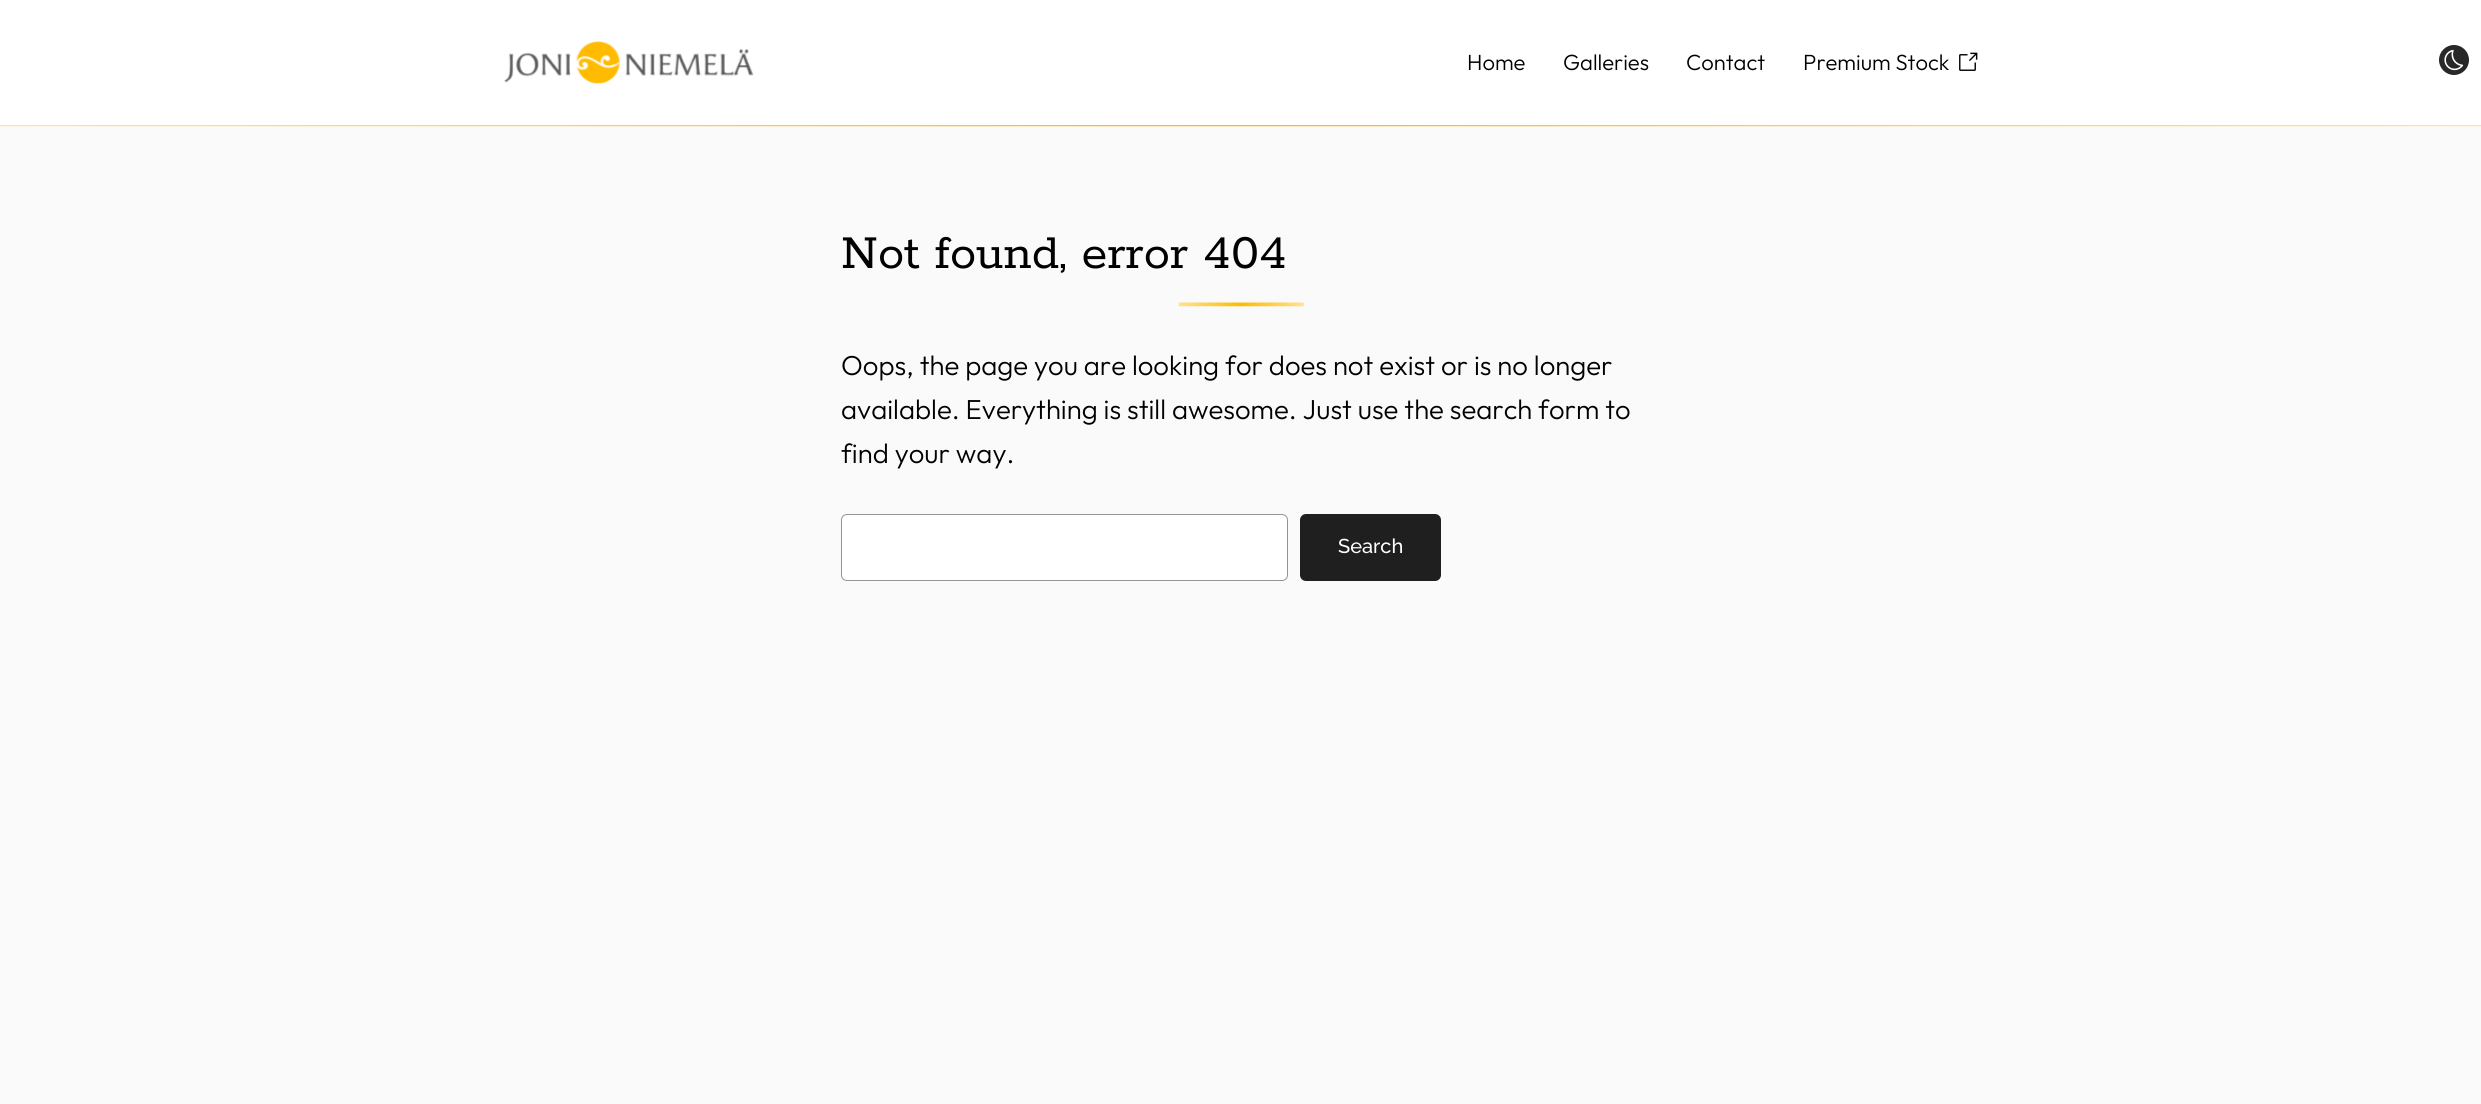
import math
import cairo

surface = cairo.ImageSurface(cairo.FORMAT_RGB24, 2481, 1104)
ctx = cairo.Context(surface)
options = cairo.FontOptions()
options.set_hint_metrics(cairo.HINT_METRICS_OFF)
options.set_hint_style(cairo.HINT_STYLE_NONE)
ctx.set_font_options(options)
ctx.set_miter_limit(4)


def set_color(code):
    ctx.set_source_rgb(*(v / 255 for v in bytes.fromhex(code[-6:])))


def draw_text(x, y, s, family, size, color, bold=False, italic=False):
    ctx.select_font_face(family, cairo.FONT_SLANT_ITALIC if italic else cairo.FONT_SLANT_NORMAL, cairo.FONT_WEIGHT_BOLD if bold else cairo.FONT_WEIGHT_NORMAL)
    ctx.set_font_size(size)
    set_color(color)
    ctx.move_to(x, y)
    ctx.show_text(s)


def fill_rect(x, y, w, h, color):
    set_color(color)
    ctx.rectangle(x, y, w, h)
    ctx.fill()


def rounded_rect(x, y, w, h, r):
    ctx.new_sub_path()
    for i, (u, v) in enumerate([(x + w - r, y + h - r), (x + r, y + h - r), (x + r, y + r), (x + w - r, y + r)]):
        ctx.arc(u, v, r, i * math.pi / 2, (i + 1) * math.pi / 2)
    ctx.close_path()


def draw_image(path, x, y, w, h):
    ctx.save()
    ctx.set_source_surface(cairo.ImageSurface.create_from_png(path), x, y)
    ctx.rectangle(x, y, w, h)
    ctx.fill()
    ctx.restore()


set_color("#fafafa")
ctx.paint()
fill_rect(0, 0, 2481, 125, "#ffffff")
draw_image("assets/img1.png", 0, 125, 2481, 2)
draw_image("assets/img2.png", 504, 41, 250, 44)
draw_text(1467, 70, "Home", "Outfit Light", 22, "#000000")
draw_text(1563, 70, "Galleries", "Outfit Light", 22, "#000000")
draw_text(1686, 70, "Contact", "Outfit Light", 22, "#000000")
draw_text(1803, 70, "Premium Stock", "Outfit Light", 22, "#000000")
draw_image("assets/img3.png", 1959, 52, 19, 19)
draw_image("assets/img4.png", 2439, 45, 30, 30)
draw_text(841, 268, "Not found, error 404", "Rokkitt", 52.5, "#000000")
draw_image("assets/img5.png", 1178, 302, 126, 5)
draw_text(841, 375, "Oops, the page you are looking for does not exist or is no longer", "Outfit Light", 27.5, "#000000")
draw_text(841, 419, "available. Everything is still awesome. Just use the search form to", "Outfit Light", 27.5, "#000000")
draw_text(841, 463, "find your way.", "Outfit Light", 27.5, "#000000")
set_color("#ffffff")
rounded_rect(841.5, 514.5, 446, 66, 5.5)
ctx.fill_preserve()
set_color("#949494")
ctx.set_line_width(1)
ctx.stroke()
set_color("#1f1f1f")
rounded_rect(1300, 514, 141, 67, 6)
ctx.fill()
draw_text(1338, 553, "Search", "Raleway Medium", 20, "#ffffff")
surface.write_to_png("output.png")
